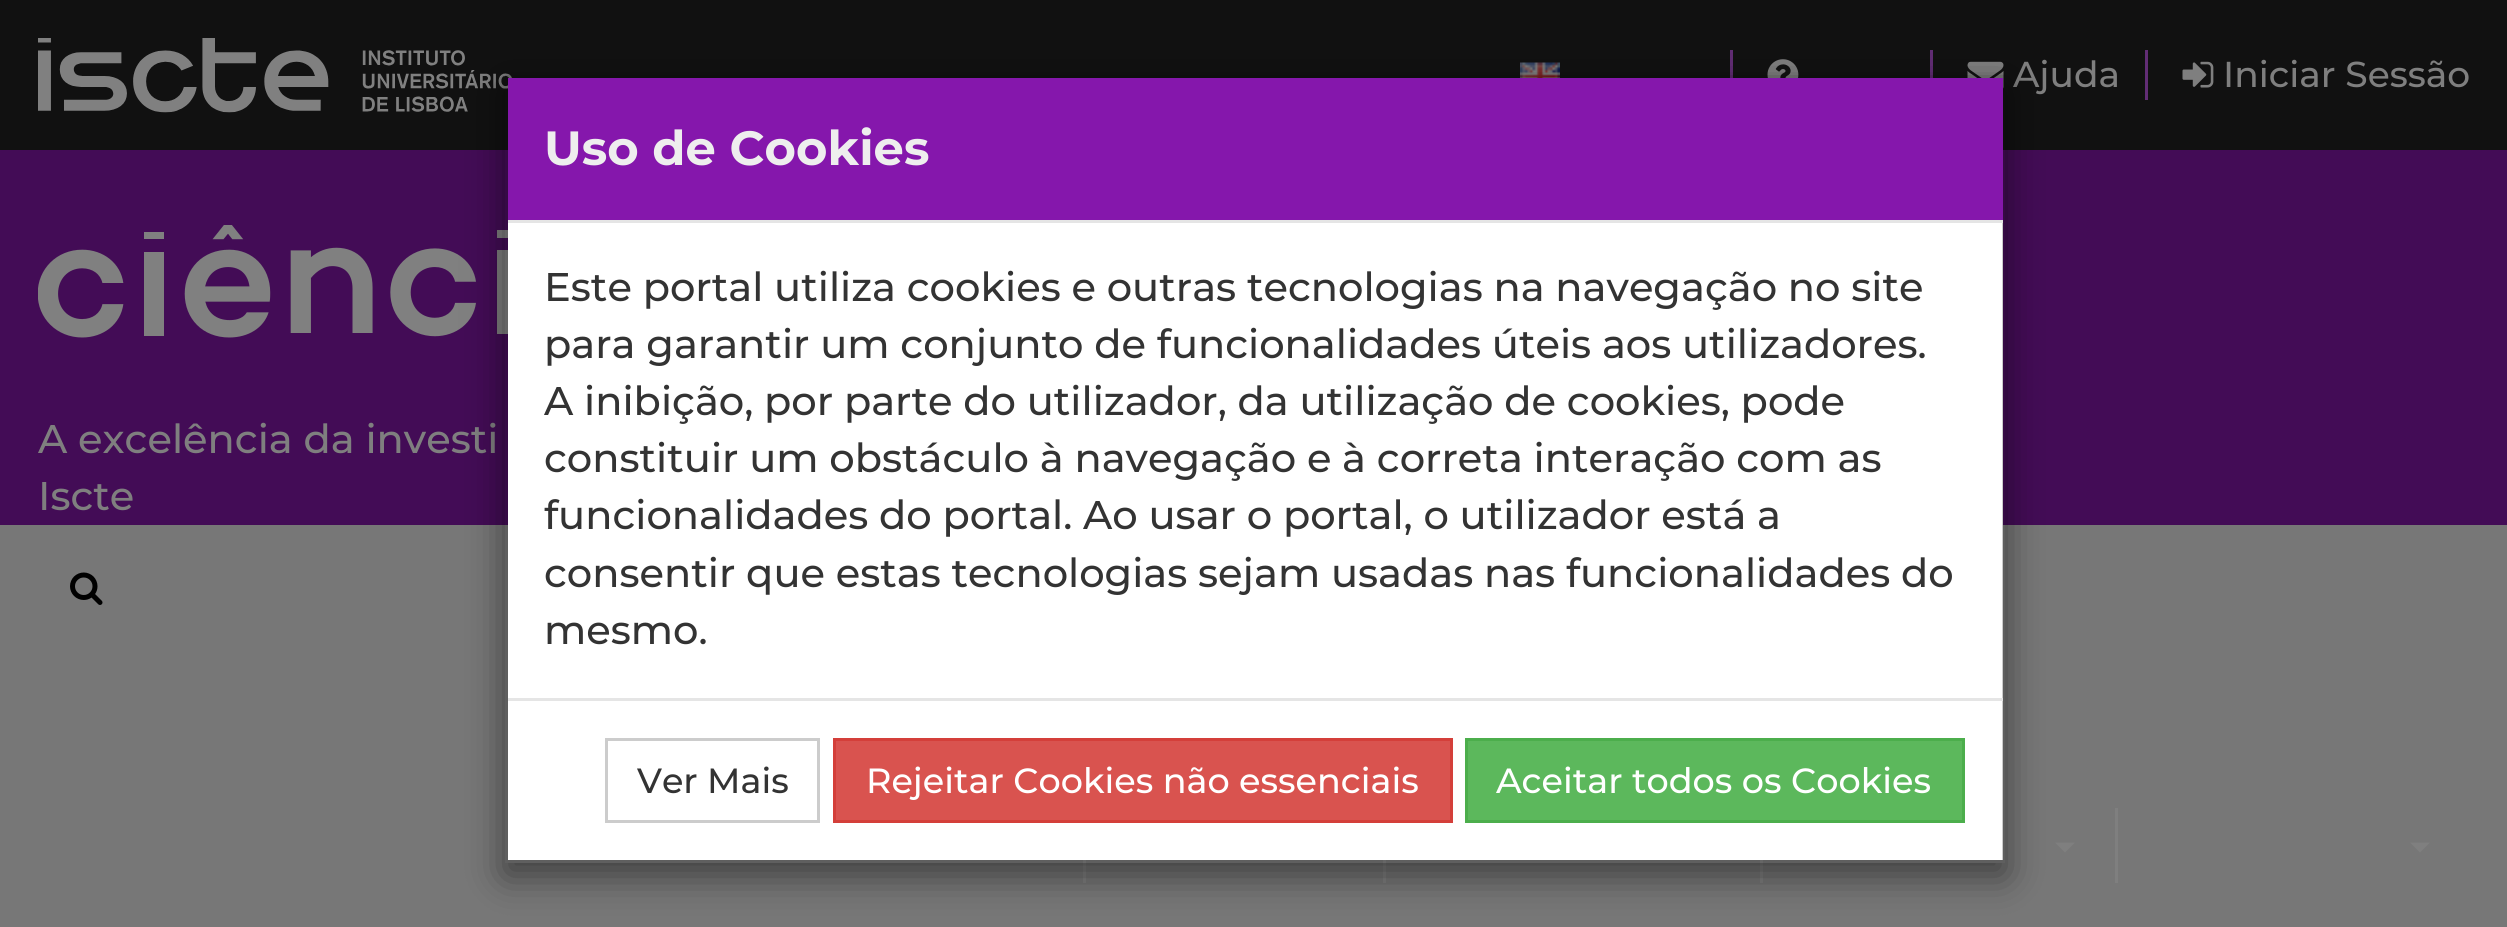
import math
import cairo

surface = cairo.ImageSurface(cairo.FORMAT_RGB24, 2507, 927)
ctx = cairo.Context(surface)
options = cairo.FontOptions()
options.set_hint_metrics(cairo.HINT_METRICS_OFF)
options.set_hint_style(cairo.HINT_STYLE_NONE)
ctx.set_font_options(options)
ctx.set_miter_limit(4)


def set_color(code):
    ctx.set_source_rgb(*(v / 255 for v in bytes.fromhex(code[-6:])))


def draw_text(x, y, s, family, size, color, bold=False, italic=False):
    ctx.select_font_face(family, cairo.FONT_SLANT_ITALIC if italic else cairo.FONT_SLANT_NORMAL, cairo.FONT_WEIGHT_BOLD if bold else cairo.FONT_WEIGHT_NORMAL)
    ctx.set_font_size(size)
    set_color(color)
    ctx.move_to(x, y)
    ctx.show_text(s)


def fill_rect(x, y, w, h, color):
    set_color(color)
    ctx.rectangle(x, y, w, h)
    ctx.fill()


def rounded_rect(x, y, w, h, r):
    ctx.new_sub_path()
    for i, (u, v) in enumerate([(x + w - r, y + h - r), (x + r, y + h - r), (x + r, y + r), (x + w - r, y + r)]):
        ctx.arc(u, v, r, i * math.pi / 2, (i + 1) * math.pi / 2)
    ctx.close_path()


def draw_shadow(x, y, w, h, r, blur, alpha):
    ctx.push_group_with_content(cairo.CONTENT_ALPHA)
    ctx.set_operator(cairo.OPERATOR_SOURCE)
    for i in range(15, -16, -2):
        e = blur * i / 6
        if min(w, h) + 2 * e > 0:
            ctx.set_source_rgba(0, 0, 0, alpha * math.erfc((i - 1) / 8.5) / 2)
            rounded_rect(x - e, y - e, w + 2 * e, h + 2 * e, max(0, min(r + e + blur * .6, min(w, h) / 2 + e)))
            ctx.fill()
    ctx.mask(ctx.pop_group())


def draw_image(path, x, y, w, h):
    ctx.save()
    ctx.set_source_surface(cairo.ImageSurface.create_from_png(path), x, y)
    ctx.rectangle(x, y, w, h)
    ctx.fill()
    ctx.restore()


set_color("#111111")
ctx.paint()
draw_image("assets/img1.png", 38, 38, 474, 75)
fill_rect(1730, 50, 3, 28, "#622d75")
draw_image("assets/img2.png", 1520, 62, 40, 16)
fill_rect(1930, 50, 3, 28, "#622d75")
draw_image("assets/img3.png", 1767, 59, 32, 19)
fill_rect(2145, 50, 3, 50, "#622d75")
draw_image("assets/img4.png", 1967, 61, 37, 28)
draw_text(2013, 87, "Ajuda", "Montserrat Medium", 36, "#7f7f7f")
draw_image("assets/img5.png", 2182, 61, 32, 27)
draw_text(2223, 87, "Iniciar Sessão", "Montserrat Medium", 36, "#7f7f7f")
fill_rect(0, 150, 2507, 375, "#430c56")
draw_image("assets/img6.png", 38, 225, 470, 113)
draw_text(38, 453, "A excelência da investi", "Montserrat Medium", 40, "#7f7f7f")
draw_text(38, 510, "Iscte", "Montserrat Medium", 40, "#7f7f7f")
fill_rect(0, 525, 2507, 402, "#777777")
fill_rect(2115, 808, 3, 75, "#7f7f7f")
ctx.new_path()
ctx.move_to(2055, 842.5)
ctx.line_to(2075, 842.5)
ctx.line_to(2065, 852.5)
ctx.close_path()
ctx.fill()
ctx.new_path()
ctx.move_to(2410, 842.5)
ctx.line_to(2430, 842.5)
ctx.line_to(2420, 852.5)
ctx.close_path()
ctx.fill()
fill_rect(1083, 860, 3, 23, "#7f7f7f")
fill_rect(1383, 860, 3, 23, "#7f7f7f")
fill_rect(1760, 860, 3, 23, "#7f7f7f")
draw_image("assets/img7.png", 70, 572, 33, 33)
ctx.save()
ctx.set_fill_rule(cairo.FILL_RULE_EVEN_ODD)
ctx.new_path()
ctx.move_to(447, 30)
ctx.line_to(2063, 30)
ctx.line_to(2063, 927)
ctx.line_to(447, 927)
ctx.close_path()
ctx.move_to(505, 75)
ctx.line_to(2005, 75)
ctx.line_to(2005, 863)
ctx.line_to(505, 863)
ctx.close_path()
ctx.clip()
set_color("#000000")
draw_shadow(505, 88, 1500, 787, 0, 19, 0.5)
ctx.restore()
fill_rect(508, 223, 1495, 637, "#ffffff")
ctx.rectangle(506.5, 76.5, 1497, 785)
ctx.set_source_rgba(0, 0, 0, 0.2)
ctx.set_line_width(3)
ctx.stroke()
fill_rect(508, 78, 1495, 142, "#8517ac")
fill_rect(508, 220, 1495, 3, "#e5e5e5")
draw_text(544, 165, "Uso de Cookies", "Montserrat", 48, "#eeeeee", bold=True)
draw_text(544, 301, "Este portal utiliza cookies e outras tecnologias na navegação no site", "Montserrat Medium", 40, "#333333")
draw_text(544, 358, "para garantir um conjunto de funcionalidades úteis aos utilizadores.", "Montserrat Medium", 40, "#333333")
draw_text(544, 415, "A inibição, por parte do utilizador, da utilização de cookies, pode", "Montserrat Medium", 40, "#333333")
draw_text(544, 472, "constituir um obstáculo à navegação e à correta interação com as", "Montserrat Medium", 40, "#333333")
draw_text(544, 529, "funcionalidades do portal. Ao usar o portal, o utilizador está a", "Montserrat Medium", 40, "#333333")
draw_text(544, 587, "consentir que estas tecnologias sejam usadas nas funcionalidades do", "Montserrat Medium", 40, "#333333")
draw_text(544, 644, "mesmo.", "Montserrat Medium", 40, "#333333")
fill_rect(508, 698, 1495, 3, "#e5e5e5")
ctx.rectangle(606.5, 739.5, 212, 82)
set_color("#cccccc")
ctx.stroke()
draw_text(637, 793, "Ver Mais", "Montserrat Medium", 35, "#333333")
set_color("#d9534f")
ctx.rectangle(834.5, 739.5, 617, 82)
ctx.fill_preserve()
set_color("#d43f3a")
ctx.stroke()
draw_text(866, 793, "Rejeitar Cookies não essenciais", "Montserrat Medium", 35, "#ffffff")
set_color("#5cb85c")
ctx.rectangle(1466.5, 739.5, 497, 82)
ctx.fill_preserve()
set_color("#4cae4c")
ctx.stroke()
draw_text(1496, 793, "Aceitar todos os Cookies", "Montserrat Medium", 35, "#ffffff")
surface.write_to_png("output.png")
